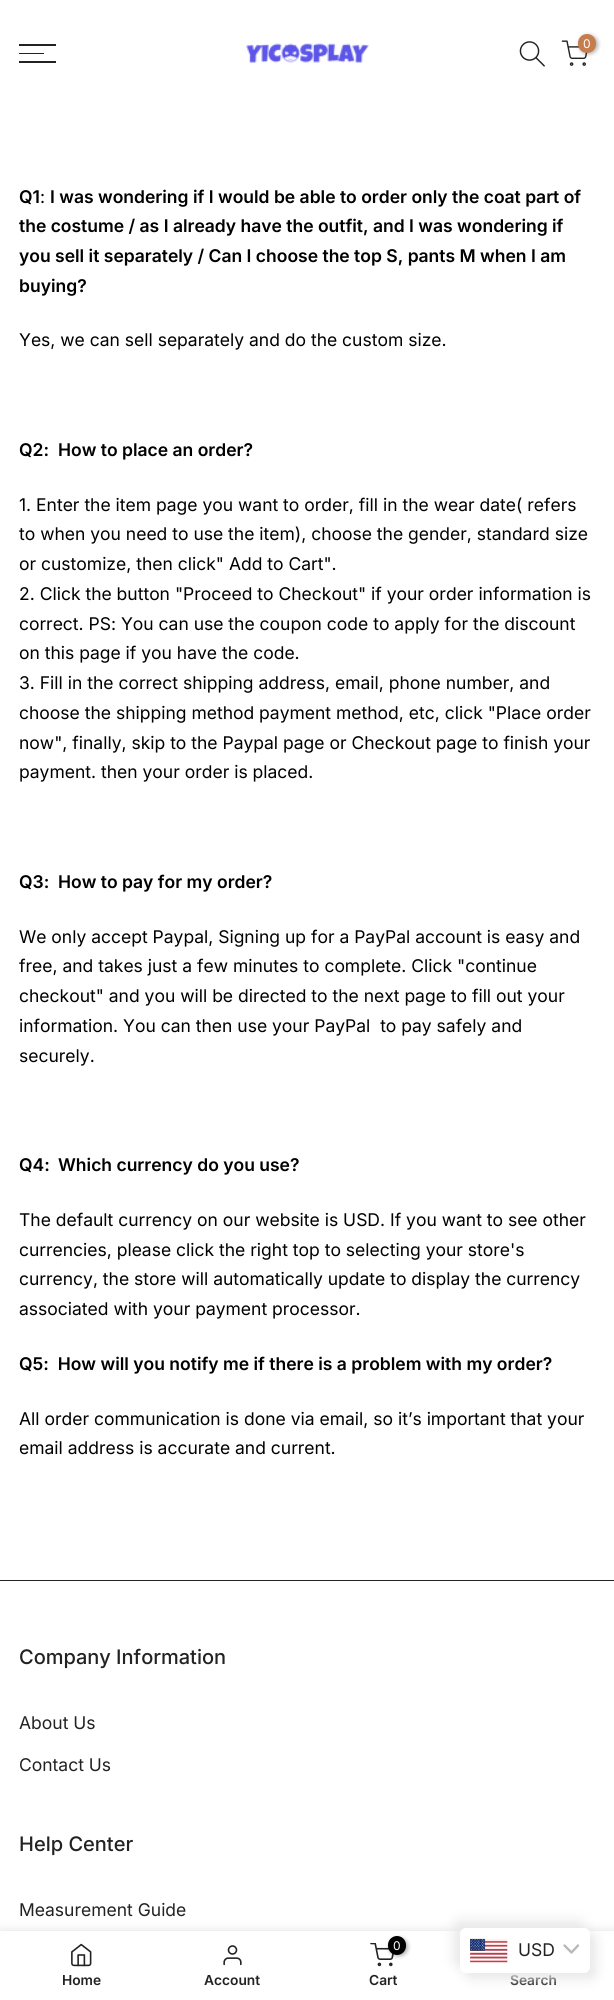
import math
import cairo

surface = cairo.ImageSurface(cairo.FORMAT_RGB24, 614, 2000)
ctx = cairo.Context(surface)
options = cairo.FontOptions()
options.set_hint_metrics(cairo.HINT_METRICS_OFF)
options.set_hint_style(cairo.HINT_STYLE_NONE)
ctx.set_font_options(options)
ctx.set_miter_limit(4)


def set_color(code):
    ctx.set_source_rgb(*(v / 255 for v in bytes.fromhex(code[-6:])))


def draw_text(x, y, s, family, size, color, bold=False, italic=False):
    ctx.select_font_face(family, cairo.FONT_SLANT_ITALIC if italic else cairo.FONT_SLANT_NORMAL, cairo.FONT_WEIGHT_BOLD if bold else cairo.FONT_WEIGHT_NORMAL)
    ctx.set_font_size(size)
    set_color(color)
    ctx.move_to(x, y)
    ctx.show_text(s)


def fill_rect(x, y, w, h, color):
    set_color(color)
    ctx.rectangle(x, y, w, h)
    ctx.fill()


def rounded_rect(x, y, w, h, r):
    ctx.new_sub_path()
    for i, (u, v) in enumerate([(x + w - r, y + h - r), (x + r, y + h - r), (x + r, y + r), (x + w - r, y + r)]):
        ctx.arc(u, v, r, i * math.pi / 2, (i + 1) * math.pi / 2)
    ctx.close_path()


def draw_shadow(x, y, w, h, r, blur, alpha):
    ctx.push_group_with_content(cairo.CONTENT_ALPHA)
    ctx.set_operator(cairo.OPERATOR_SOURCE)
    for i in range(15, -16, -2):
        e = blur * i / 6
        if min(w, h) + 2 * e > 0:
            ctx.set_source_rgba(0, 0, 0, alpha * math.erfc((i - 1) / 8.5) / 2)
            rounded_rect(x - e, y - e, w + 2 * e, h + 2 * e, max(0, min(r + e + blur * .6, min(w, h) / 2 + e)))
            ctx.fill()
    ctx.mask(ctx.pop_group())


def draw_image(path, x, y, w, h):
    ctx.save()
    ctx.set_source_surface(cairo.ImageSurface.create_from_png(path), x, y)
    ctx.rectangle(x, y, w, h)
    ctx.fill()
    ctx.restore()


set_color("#ffffff")
ctx.paint()
fill_rect(19, 44, 37, 2, "#222222")
fill_rect(19, 53, 25, 1, "#222222")
fill_rect(19, 61, 37, 2, "#222222")
draw_image("assets/img1.png", 246, 43, 123, 20)
draw_image("assets/img2.png", 519, 41, 26, 26)
draw_image("assets/img3.png", 561, 40, 27, 26)
set_color("#000000")
draw_shadow(579, 35, 19, 19, 9.5, 2, 0.3)
set_color("#c67d4e")
rounded_rect(578, 34, 18, 19, 9)
ctx.fill()
draw_text(583, 48, "0", "Inter", 12, "#ffffff")
draw_text(19, 203, "Q1", "Inter SemiBold", 17.5, "#000000")
draw_text(40, 203, ":", "Inter", 17.5, "#000000")
draw_text(50, 203, "I was wondering if I would be able to order only the coat part of", "Inter SemiBold", 17.5, "#000000")
draw_text(19, 232, "the costume / as I already have the outfit, and I was wondering if", "Inter SemiBold", 17.5, "#000000")
draw_text(19, 262, "you sell it separately / Can I choose the top S, pants M when I am", "Inter SemiBold", 17.5, "#000000")
draw_text(19, 292, "buying?", "Inter SemiBold", 17.5, "#000000")
draw_text(19, 346, "Yes, we can sell separately and do the custom size.", "Inter", 17.5, "#000000")
draw_text(19, 456, "Q2:", "Inter SemiBold", 17.5, "#000000")
draw_text(58, 456, "How to place an order?", "Inter SemiBold", 17.5, "#000000")
draw_text(19, 511, "1. Enter the item page you want to order, fill in the wear date( refers", "Inter", 17.5, "#000000")
draw_text(19, 540, "to when you need to use the item), choose the gender, standard size", "Inter", 17.5, "#000000")
draw_text(19, 570, "or customize, then click\" Add to Cart\".", "Inter", 17.5, "#000000")
draw_text(19, 600, "2. Click the button \"Proceed to Checkout\" if your order information is", "Inter", 17.5, "#000000")
draw_text(19, 630, "correct. PS: You can use the coupon code to apply for the discount", "Inter", 17.5, "#000000")
draw_text(19, 659, "on this page if you have the code.", "Inter", 17.5, "#000000")
draw_text(19, 689, "3. Fill in the correct shipping address, email, phone number, and", "Inter", 17.5, "#000000")
draw_text(19, 719, "choose the shipping method payment method, etc, click \"Place order", "Inter", 17.5, "#000000")
draw_text(19, 749, "now\", finally, skip to the Paypal page or Checkout page to finish your", "Inter", 17.5, "#000000")
draw_text(19, 778, "payment. then your order is placed.", "Inter", 17.5, "#000000")
draw_text(19, 888, "Q3:", "Inter SemiBold", 17.5, "#000000")
draw_text(58, 888, "How to pay for my order?", "Inter SemiBold", 17.5, "#000000")
draw_text(19, 943, "We only accept Paypal, Signing up for a PayPal account is easy and", "Inter", 17.5, "#000000")
draw_text(19, 972, "free, and takes just a few minutes to complete. Click \"continue", "Inter", 17.5, "#000000")
draw_text(19, 1002, "checkout\" and you will be directed to the next page to fill out your", "Inter", 17.5, "#000000")
draw_text(19, 1032, "information. You can then use your PayPal  to pay safely and", "Inter", 17.5, "#000000")
draw_text(19, 1062, "securely.", "Inter", 17.5, "#000000")
draw_text(19, 1171, "Q4:", "Inter SemiBold", 17.5, "#000000")
draw_text(58, 1171, "Which currency do you use?", "Inter SemiBold", 17.5, "#000000")
draw_text(19, 1226, "The default currency on our website is USD. If you want to see other", "Inter", 17.5, "#000000")
draw_text(19, 1256, "currencies, please click the right top to selecting your store's", "Inter", 17.5, "#000000")
draw_text(19, 1285, "currency, the store will automatically update to display the currency", "Inter", 17.5, "#000000")
draw_text(19, 1315, "associated with your payment processor.", "Inter", 17.5, "#000000")
draw_text(19, 1370, "Q5:  How will you notify me if there is a problem with my order?", "Inter SemiBold", 17.5, "#000000")
draw_text(19, 1425, "All order communication is done via email, so it’s important that your", "Inter", 17.5, "#000000")
draw_text(19, 1454, "email address is accurate and current.", "Inter", 17.5, "#000000")
fill_rect(0, 1580, 614, 1, "#222222")
draw_text(19, 1664, "Company Information", "Inter Medium", 20, "#222222")
draw_text(19, 1729, "About Us", "Inter", 17.5, "#222222")
draw_text(19, 1771, "Contact Us", "Inter", 17.5, "#222222")
draw_text(19, 1851, "Help Center", "Inter Medium", 20, "#222222")
draw_text(19, 1916, "Measurement Guide", "Inter", 17.5, "#222222")
set_color("#000000")
draw_shadow(0, 1931, 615, 69, 0, 5.5, 0.12)
fill_rect(0, 1931, 614, 69, "#ffffff")
draw_image("assets/img4.png", 71, 1943, 21, 24)
draw_text(62, 1985, "Home", "Inter SemiBold", 13.75, "#222222")
draw_image("assets/img5.png", 223, 1945, 19, 21)
draw_text(204, 1985, "Account", "Inter SemiBold", 13.75, "#222222")
draw_image("assets/img6.png", 370, 1943, 24, 24)
set_color("#000000")
draw_shadow(389, 1938, 19, 18, 9, 2, 0.3)
set_color("#000000")
rounded_rect(388, 1936, 18, 19, 9)
ctx.fill()
draw_text(393, 1950, "0", "Inter", 12, "#ffffff")
draw_text(369, 1985, "Cart", "Inter SemiBold", 13.75, "#222222")
draw_text(510, 1985, "Search", "Inter SemiBold", 13.75, "#222222")
set_color("#e8e8e8")
draw_shadow(454, 1921, 130, 45, 6, 6, 1)
draw_shadow(466, 1934, 130, 45, 6, 6, 1)
set_color("#ffffff")
rounded_rect(460, 1928, 130, 45, 6)
ctx.fill()
draw_image("assets/img7.png", 470, 1938, 38, 25)
draw_text(518, 1956, "USD", "Inter", 17.5, "#222222")
ctx.new_path()
ctx.move_to(564.5, 1945.5)
ctx.line_to(571.5, 1952.5)
ctx.line_to(578, 1945.5)
set_color("#b7b7b7")
ctx.set_line_width(2.3)
ctx.set_line_cap(cairo.LINE_CAP_ROUND)
ctx.set_line_join(cairo.LINE_JOIN_ROUND)
ctx.stroke()
surface.write_to_png("output.png")
